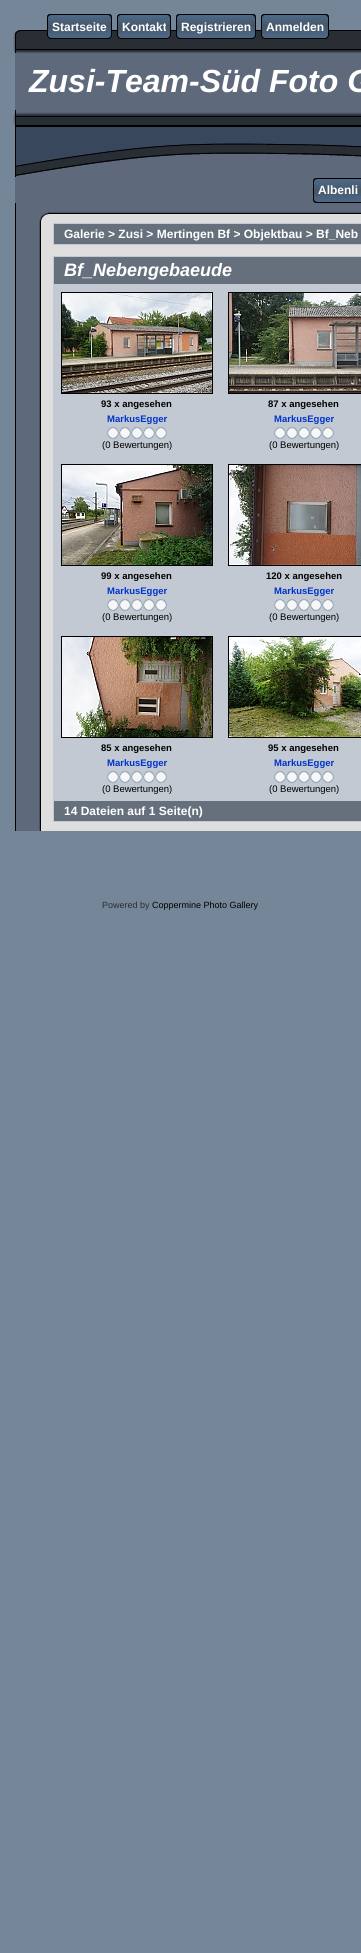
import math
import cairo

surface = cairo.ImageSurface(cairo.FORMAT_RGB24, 361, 1953)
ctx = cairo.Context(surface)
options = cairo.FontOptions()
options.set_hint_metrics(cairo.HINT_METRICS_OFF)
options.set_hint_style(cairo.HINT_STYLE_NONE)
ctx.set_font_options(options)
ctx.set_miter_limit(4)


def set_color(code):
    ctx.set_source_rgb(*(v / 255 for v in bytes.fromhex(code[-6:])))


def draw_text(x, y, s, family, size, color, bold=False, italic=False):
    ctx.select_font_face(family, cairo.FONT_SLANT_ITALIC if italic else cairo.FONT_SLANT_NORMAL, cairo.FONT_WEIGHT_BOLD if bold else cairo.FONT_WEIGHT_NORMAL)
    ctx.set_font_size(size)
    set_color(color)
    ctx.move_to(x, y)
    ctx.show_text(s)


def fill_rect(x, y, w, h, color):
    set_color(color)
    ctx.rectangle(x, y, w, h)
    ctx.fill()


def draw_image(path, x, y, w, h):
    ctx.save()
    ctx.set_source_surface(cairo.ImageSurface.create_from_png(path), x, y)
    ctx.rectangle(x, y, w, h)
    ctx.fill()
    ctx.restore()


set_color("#758698")
ctx.paint()
draw_image("assets/img1.png", 42, 30, 319, 23)
draw_image("assets/img2.png", 47, 14, 5, 25)
draw_image("assets/img3.png", 52, 14, 55, 25)
draw_text(52, 31, "Startseite", "Liberation Sans", 12, "#ffffff", bold=True)
draw_image("assets/img4.png", 107, 14, 5, 25)
draw_image("assets/img2.png", 117, 14, 5, 25)
draw_image("assets/img5.png", 122, 14, 44, 25)
draw_text(122, 31, "Kontakt", "Liberation Sans", 12, "#ffffff", bold=True)
draw_image("assets/img4.png", 166, 14, 5, 25)
draw_image("assets/img2.png", 176, 14, 5, 25)
draw_image("assets/img6.png", 181, 14, 70, 25)
draw_text(181, 31, "Registrieren", "Liberation Sans", 12, "#ffffff", bold=True)
draw_image("assets/img4.png", 251, 14, 5, 25)
draw_image("assets/img2.png", 261, 14, 5, 25)
draw_image("assets/img7.png", 266, 14, 58, 25)
draw_text(266, 31, "Anmelden", "Liberation Sans", 12, "#ffffff", bold=True)
draw_image("assets/img4.png", 324, 14, 5, 25)
draw_image("assets/img8.png", 13, 30, 29, 23)
fill_rect(15, 53, 346, 57, "#5e697b")
draw_text(29, 92, "Zusi-Team-Süd Foto G", "Liberation Sans", 32, "#ffffff", bold=True, italic=True)
draw_image("assets/img9.png", 13, 110, 348, 67)
fill_rect(15, 177, 346, 26, "#5e697b")
draw_image("assets/img10.png", 313, 178, 5, 25)
draw_image("assets/img11.png", 318, 178, 43, 25)
draw_text(318, 194, "Albenli", "Liberation Sans", 12, "#ffffff", bold=True)
draw_image("assets/img12.png", 15, 203, 27, 18)
draw_image("assets/img13.png", 42, 203, 14, 18)
draw_image("assets/img14.png", 56, 203, 305, 18)
draw_image("assets/img15.png", 15, 221, 27, 610)
fill_rect(42, 221, 319, 610, "#dedede")
fill_rect(53, 223, 308, 22, "#c2c9d3")
fill_rect(54, 224, 307, 20, "#66707c")
draw_text(64, 238, "Galerie > Zusi > Mertingen Bf > Objektbau > Bf_Neb", "Liberation Sans", 12, "#ffffff", bold=True)
fill_rect(53, 256, 308, 566, "#c2c9d3")
fill_rect(54, 257, 307, 27, "#66707c")
draw_text(64, 276, "Bf_Nebengebaeude", "Liberation Sans", 18, "#ffffff", bold=True, italic=True)
ctx.rectangle(61.5, 292.5, 151, 101)
set_color("#000000")
ctx.set_line_width(1)
ctx.stroke()
draw_image("assets/img16.png", 62, 293, 150, 100)
draw_text(101, 407, "93 x angesehen", "Liberation Sans", 9.5, "#000000", bold=True)
draw_text(107, 422, "MarkusEgger", "Liberation Sans", 9.5, "#0033cc", bold=True)
draw_image("assets/img17.png", 107, 427, 12, 12)
draw_image("assets/img17.png", 119, 427, 12, 12)
draw_image("assets/img17.png", 131, 427, 12, 12)
draw_image("assets/img17.png", 143, 427, 12, 12)
draw_image("assets/img17.png", 155, 427, 12, 12)
draw_text(102, 448, "(0 Bewertungen)", "Liberation Sans", 9.5, "#000000")
ctx.rectangle(228.5, 292.5, 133, 101)
ctx.stroke()
draw_image("assets/img18.png", 229, 293, 132, 100)
draw_text(268, 407, "87 x angesehen", "Liberation Sans", 9.5, "#000000", bold=True)
draw_text(274, 422, "MarkusEgger", "Liberation Sans", 9.5, "#0033cc", bold=True)
draw_image("assets/img17.png", 274, 427, 12, 12)
draw_image("assets/img17.png", 286, 427, 12, 12)
draw_image("assets/img17.png", 298, 427, 12, 12)
draw_image("assets/img17.png", 310, 427, 12, 12)
draw_image("assets/img17.png", 322, 427, 12, 12)
draw_text(269, 448, "(0 Bewertungen)", "Liberation Sans", 9.5, "#000000")
ctx.rectangle(61.5, 464.5, 151, 101)
ctx.stroke()
draw_image("assets/img19.png", 62, 465, 150, 100)
draw_text(101, 579, "99 x angesehen", "Liberation Sans", 9.5, "#000000", bold=True)
draw_text(107, 594, "MarkusEgger", "Liberation Sans", 9.5, "#0033cc", bold=True)
draw_image("assets/img17.png", 107, 599, 12, 12)
draw_image("assets/img17.png", 119, 599, 12, 12)
draw_image("assets/img17.png", 131, 599, 12, 12)
draw_image("assets/img17.png", 143, 599, 12, 12)
draw_image("assets/img17.png", 155, 599, 12, 12)
draw_text(102, 620, "(0 Bewertungen)", "Liberation Sans", 9.5, "#000000")
ctx.rectangle(228.5, 464.5, 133, 101)
ctx.stroke()
draw_image("assets/img20.png", 229, 465, 132, 100)
draw_text(266, 579, "120 x angesehen", "Liberation Sans", 9.5, "#000000", bold=True)
draw_text(274, 594, "MarkusEgger", "Liberation Sans", 9.5, "#0033cc", bold=True)
draw_image("assets/img17.png", 274, 599, 12, 12)
draw_image("assets/img17.png", 286, 599, 12, 12)
draw_image("assets/img17.png", 298, 599, 12, 12)
draw_image("assets/img17.png", 310, 599, 12, 12)
draw_image("assets/img17.png", 322, 599, 12, 12)
draw_text(269, 620, "(0 Bewertungen)", "Liberation Sans", 9.5, "#000000")
ctx.rectangle(61.5, 636.5, 151, 101)
ctx.stroke()
draw_image("assets/img21.png", 62, 637, 150, 100)
draw_text(101, 751, "85 x angesehen", "Liberation Sans", 9.5, "#000000", bold=True)
draw_text(107, 766, "MarkusEgger", "Liberation Sans", 9.5, "#0033cc", bold=True)
draw_image("assets/img17.png", 107, 771, 12, 12)
draw_image("assets/img17.png", 119, 771, 12, 12)
draw_image("assets/img17.png", 131, 771, 12, 12)
draw_image("assets/img17.png", 143, 771, 12, 12)
draw_image("assets/img17.png", 155, 771, 12, 12)
draw_text(102, 792, "(0 Bewertungen)", "Liberation Sans", 9.5, "#000000")
ctx.rectangle(228.5, 636.5, 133, 101)
ctx.stroke()
draw_image("assets/img22.png", 229, 637, 132, 100)
draw_text(268, 751, "95 x angesehen", "Liberation Sans", 9.5, "#000000", bold=True)
draw_text(274, 766, "MarkusEgger", "Liberation Sans", 9.5, "#0033cc", bold=True)
draw_image("assets/img17.png", 274, 771, 12, 12)
draw_image("assets/img17.png", 286, 771, 12, 12)
draw_image("assets/img17.png", 298, 771, 12, 12)
draw_image("assets/img17.png", 310, 771, 12, 12)
draw_image("assets/img17.png", 322, 771, 12, 12)
draw_text(269, 792, "(0 Bewertungen)", "Liberation Sans", 9.5, "#000000")
fill_rect(54, 801, 307, 20, "#66707c")
draw_text(64, 815, "14 Dateien auf 1 Seite(n)", "Liberation Sans", 12, "#ffffff", bold=True)
draw_text(102, 908, "Powered by", "Liberation Sans", 9, "#292e34")
draw_text(152, 908, "Coppermine Photo Gallery", "Liberation Sans", 9, "#000000")
surface.write_to_png("output.png")
